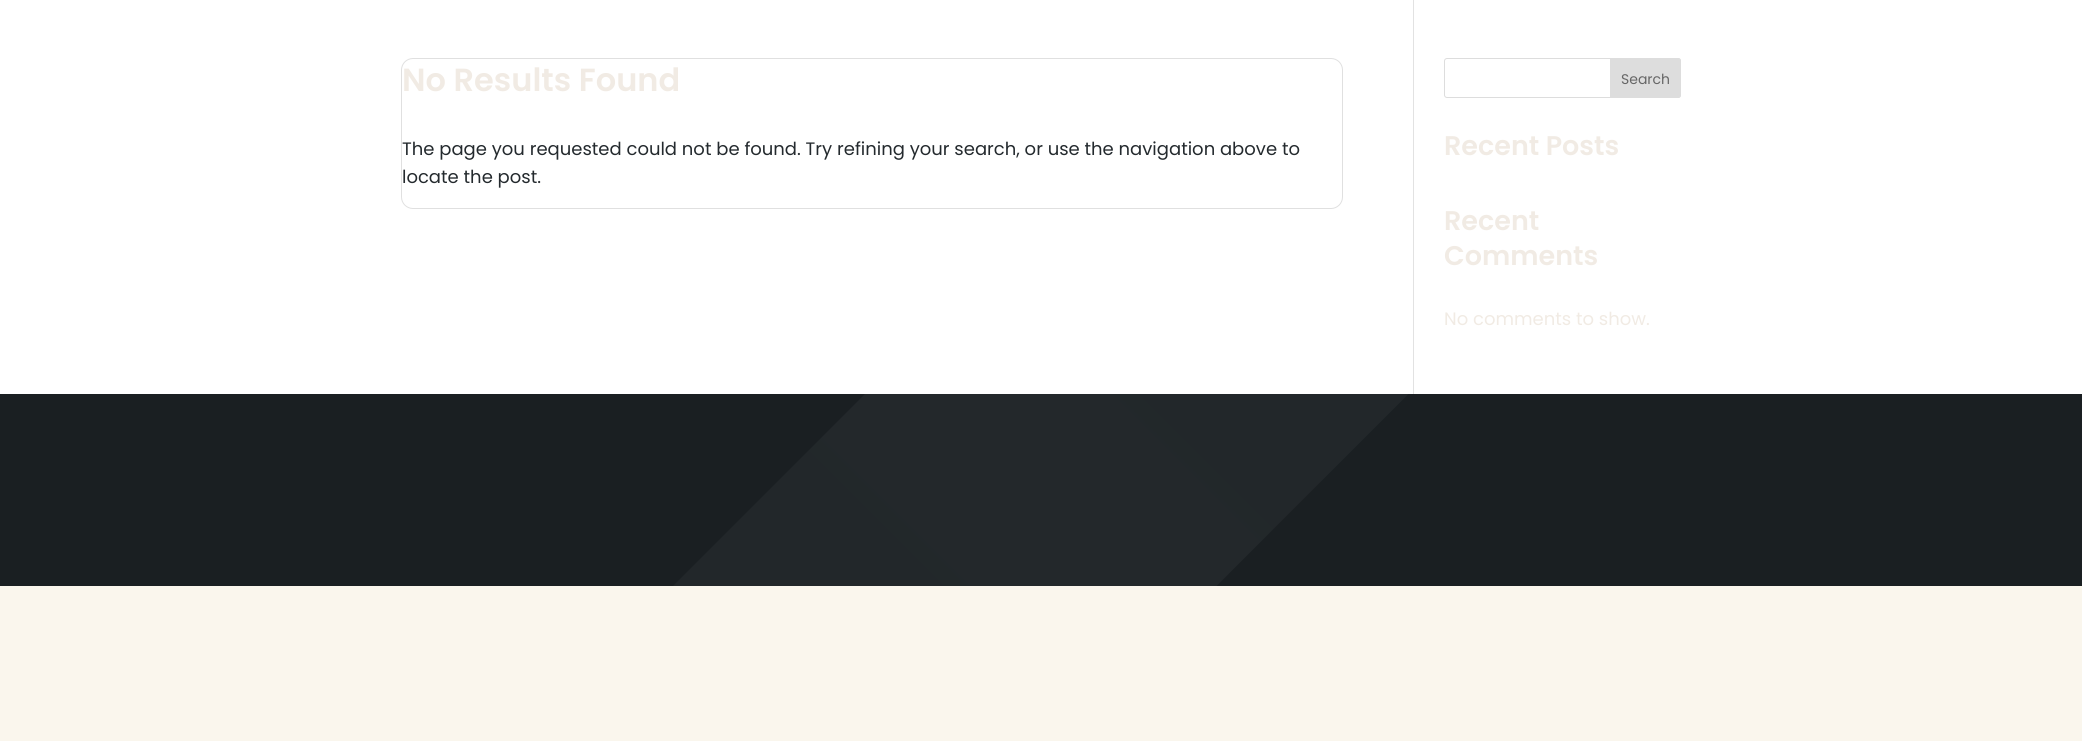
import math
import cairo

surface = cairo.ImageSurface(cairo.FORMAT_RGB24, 2082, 741)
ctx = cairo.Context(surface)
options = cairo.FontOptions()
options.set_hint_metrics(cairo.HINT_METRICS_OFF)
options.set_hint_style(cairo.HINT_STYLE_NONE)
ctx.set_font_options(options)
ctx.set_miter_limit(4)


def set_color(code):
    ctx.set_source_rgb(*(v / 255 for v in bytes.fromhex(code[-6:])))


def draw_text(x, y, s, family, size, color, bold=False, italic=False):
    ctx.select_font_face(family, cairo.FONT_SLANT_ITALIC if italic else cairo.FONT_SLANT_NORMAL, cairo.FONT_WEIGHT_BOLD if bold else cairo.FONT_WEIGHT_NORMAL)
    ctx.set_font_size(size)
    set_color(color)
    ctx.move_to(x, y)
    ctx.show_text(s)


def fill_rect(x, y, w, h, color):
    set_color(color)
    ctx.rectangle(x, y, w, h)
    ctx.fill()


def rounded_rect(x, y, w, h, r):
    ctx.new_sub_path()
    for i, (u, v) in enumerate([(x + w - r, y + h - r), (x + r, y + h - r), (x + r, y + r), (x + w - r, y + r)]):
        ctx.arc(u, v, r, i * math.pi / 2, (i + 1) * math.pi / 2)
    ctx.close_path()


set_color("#faf6ed")
ctx.paint()
fill_rect(0, 0, 2082, 394, "#ffffff")
fill_rect(1413, 0, 1, 394, "#e2e2e2")
rounded_rect(401.5, 58.5, 941, 150, 11.5)
set_color("#e0e0e0")
ctx.set_line_width(1)
ctx.stroke()
draw_text(402, 91, "No Results Found", "Poppins SemiBold", 32, "#f1ebe4")
draw_text(402, 155, "The page you requested could not be found. Try refining your search, or use the navigation above to", "Poppins", 18, "#242a2e")
draw_text(402, 183, "locate the post.", "Poppins", 18, "#242a2e")
rounded_rect(1444.5, 58.5, 236, 39, 2.5)
set_color("#dddddd")
ctx.stroke()
ctx.new_path()
ctx.move_to(1610.5, 58.5)
ctx.line_to(1678, 58.5)
ctx.curve_to(1679.5, 58.5, 1680.5, 59.5, 1680.5, 61)
ctx.line_to(1680.5, 95)
ctx.curve_to(1680.5, 96.5, 1679.5, 97.5, 1678, 97.5)
ctx.line_to(1610.5, 97.5)
ctx.close_path()
ctx.fill_preserve()
ctx.stroke()
draw_text(1621, 84, "Search", "Poppins", 14, "#666666")
draw_text(1444, 155, "Recent Posts", "Poppins SemiBold", 27, "#f1ebe4")
draw_text(1444, 230, "Recent", "Poppins SemiBold", 27, "#f1ebe4")
draw_text(1444, 265, "Comments", "Poppins SemiBold", 27, "#f1ebe4")
draw_text(1444, 325, "No comments to show.", "Poppins", 18, "#f1ebe4")
gradient = cairo.LinearGradient(1890, -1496, 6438, 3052)
gradient.add_color_stop_rgba(0.25, 0.102, 0.122, 0.133, 1)
gradient.add_color_stop_rgba(0.45, 0.141, 0.165, 0.18, 1)
gradient.add_color_stop_rgba(0.55, 0.141, 0.165, 0.18, 1)
gradient.add_color_stop_rgba(0.75, 0.102, 0.122, 0.133, 1)
ctx.set_source(gradient)
ctx.rectangle(0, 394, 2082, 192)
ctx.fill()
ctx.save()
ctx.rectangle(0, 394, 2082, 192)
ctx.clip()
gradient = cairo.LinearGradient(-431, 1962, 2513, -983)
gradient.add_color_stop_rgba(0, 0.102, 0.122, 0.133, 1)
gradient.add_color_stop_rgba(0.25, 0.122, 0.141, 0.149, 1)
gradient.add_color_stop_rgba(0.5, 0.137, 0.157, 0.169, 1)
gradient.add_color_stop_rgba(0.75, 0.122, 0.141, 0.149, 1)
gradient.add_color_stop_rgba(1, 0.102, 0.122, 0.133, 1)
ctx.set_source(gradient)
ctx.new_path()
ctx.move_to(-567, 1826)
ctx.line_to(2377, -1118)
ctx.line_to(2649, -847)
ctx.line_to(-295, 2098)
ctx.close_path()
ctx.fill()
ctx.restore()
surface.write_to_png("output.png")
